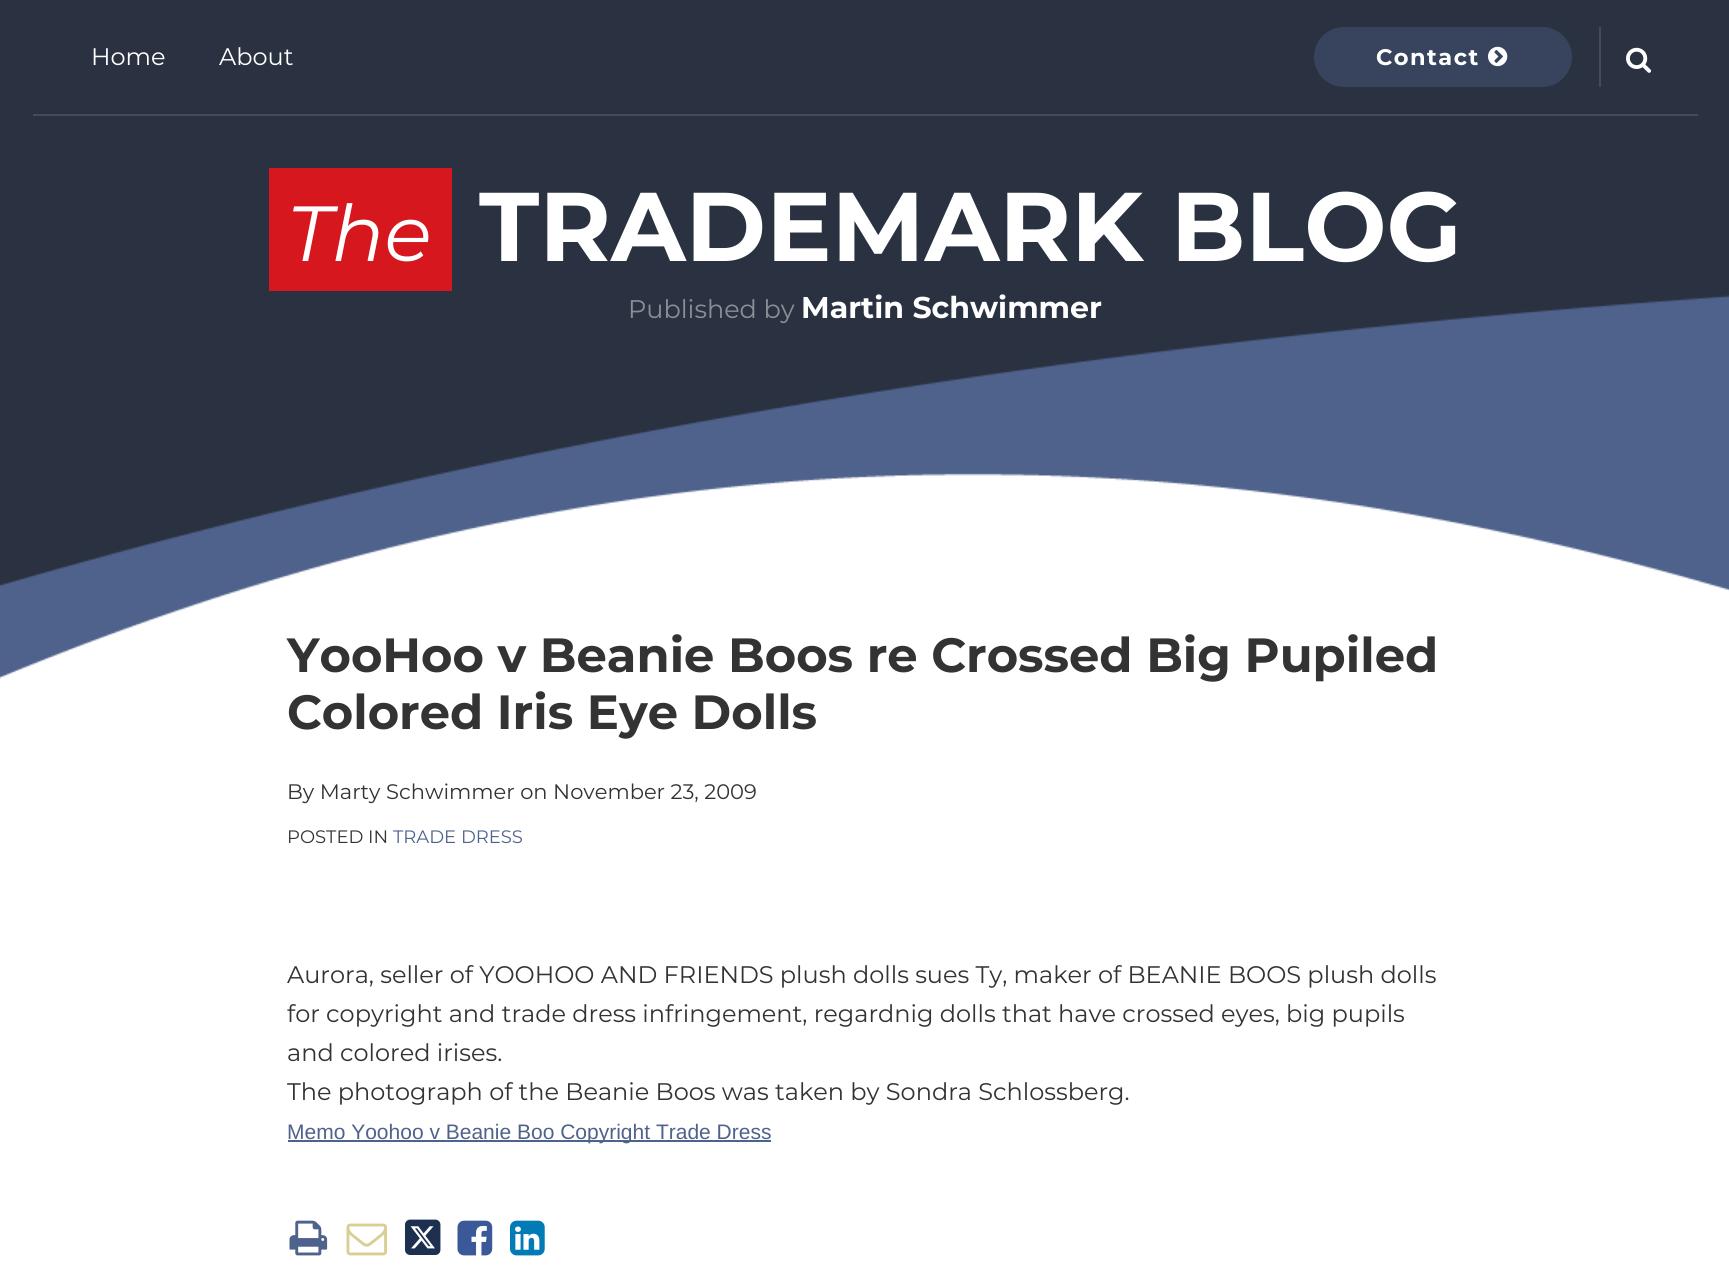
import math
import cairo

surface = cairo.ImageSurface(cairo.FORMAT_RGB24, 1729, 1288)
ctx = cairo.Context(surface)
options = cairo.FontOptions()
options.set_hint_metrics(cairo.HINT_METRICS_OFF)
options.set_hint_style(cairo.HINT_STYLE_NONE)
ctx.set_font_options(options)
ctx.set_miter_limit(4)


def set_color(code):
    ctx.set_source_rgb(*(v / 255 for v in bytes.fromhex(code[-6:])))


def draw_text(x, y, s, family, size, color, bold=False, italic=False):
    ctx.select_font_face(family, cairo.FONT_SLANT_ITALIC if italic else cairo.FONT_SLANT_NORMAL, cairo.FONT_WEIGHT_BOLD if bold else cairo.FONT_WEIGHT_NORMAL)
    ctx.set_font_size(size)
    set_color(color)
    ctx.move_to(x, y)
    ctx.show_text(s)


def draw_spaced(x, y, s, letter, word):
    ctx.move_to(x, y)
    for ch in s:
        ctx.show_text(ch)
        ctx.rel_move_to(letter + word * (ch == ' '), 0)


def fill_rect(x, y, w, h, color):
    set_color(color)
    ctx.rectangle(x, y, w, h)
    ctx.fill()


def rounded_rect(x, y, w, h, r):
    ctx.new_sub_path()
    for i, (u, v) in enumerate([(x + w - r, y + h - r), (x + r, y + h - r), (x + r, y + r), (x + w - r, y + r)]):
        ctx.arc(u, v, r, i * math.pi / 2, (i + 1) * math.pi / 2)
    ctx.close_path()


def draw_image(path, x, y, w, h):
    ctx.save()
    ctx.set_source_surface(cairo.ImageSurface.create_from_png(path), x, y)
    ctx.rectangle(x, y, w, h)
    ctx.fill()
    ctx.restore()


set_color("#ffffff")
ctx.paint()
draw_image("assets/img1.png", 0, 0, 1729, 679)
fill_rect(33, 114, 1665, 2, "#444a57")
draw_text(91, 65, "Home", "Montserrat", 24, "#ffffff")
draw_text(219, 65, "About", "Montserrat", 24, "#ffffff")
set_color("#38445d")
rounded_rect(1314, 27, 258, 60, 30)
ctx.fill()
ctx.select_font_face("Montserrat", cairo.FONT_SLANT_NORMAL, cairo.FONT_WEIGHT_BOLD)
ctx.set_font_size(22.5)
set_color("#ffffff")
draw_spaced(1376, 65, "Contact", 1.5, 0)
draw_image("assets/img2.png", 1488, 46, 20, 21)
fill_rect(1599, 27, 2, 60, "#444a57")
draw_image("assets/img3.png", 1626, 47, 25, 26)
fill_rect(269, 168, 183, 123, "#d6181e")
draw_text(287, 261, "The", "Montserrat", 78, "#ffffff", italic=True)
draw_text(479, 261, "TRADEMARK BLOG", "Montserrat", 97.5, "#ffffff", bold=True)
draw_text(628, 318, "Published by", "Montserrat", 25.5, "#8b9096")
draw_text(801, 318, "Martin Schwimmer", "Montserrat", 30, "#ffffff", bold=True)
draw_text(287, 672, "YooHoo v Beanie Boos re Crossed Big Pupiled", "Montserrat", 48, "#333333", bold=True)
draw_text(287, 729, "Colored Iris Eye Dolls", "Montserrat", 48, "#333333", bold=True)
draw_text(287, 799, "By Marty Schwimmer on November 23, 2009", "Montserrat", 21, "#333333")
draw_text(287, 843, "POSTED IN", "Montserrat", 18, "#333333")
draw_text(393, 843, "TRADE DRESS", "Montserrat", 18, "#4f628c")
draw_text(287, 983, "Aurora, seller of YOOHOO AND FRIENDS plush dolls sues Ty, maker of BEANIE BOOS plush dolls", "Montserrat", 24, "#333333")
draw_text(287, 1022, "for copyright and trade dress infringement, regardnig dolls that have crossed eyes, big pupils", "Montserrat", 24, "#333333")
draw_text(287, 1061, "and colored irises.", "Montserrat", 24, "#333333")
draw_text(287, 1100, "The photograph of the Beanie Boos was taken by Sondra Schlossberg.", "Montserrat", 24, "#333333")
fill_rect(288, 1140, 483, 2, "#4f628c")
draw_text(287, 1139, "Memo Yoohoo v Beanie Boo Copyright Trade Dress", "Liberation Sans", 21, "#4f628c")
draw_image("assets/img4.png", 289, 1220, 39, 36)
draw_image("assets/img5.png", 346, 1223, 41, 33)
draw_image("assets/img6.png", 405, 1219, 36, 36)
draw_image("assets/img7.png", 457, 1220, 36, 36)
draw_image("assets/img8.png", 510, 1220, 35, 36)
surface.write_to_png("output.png")
